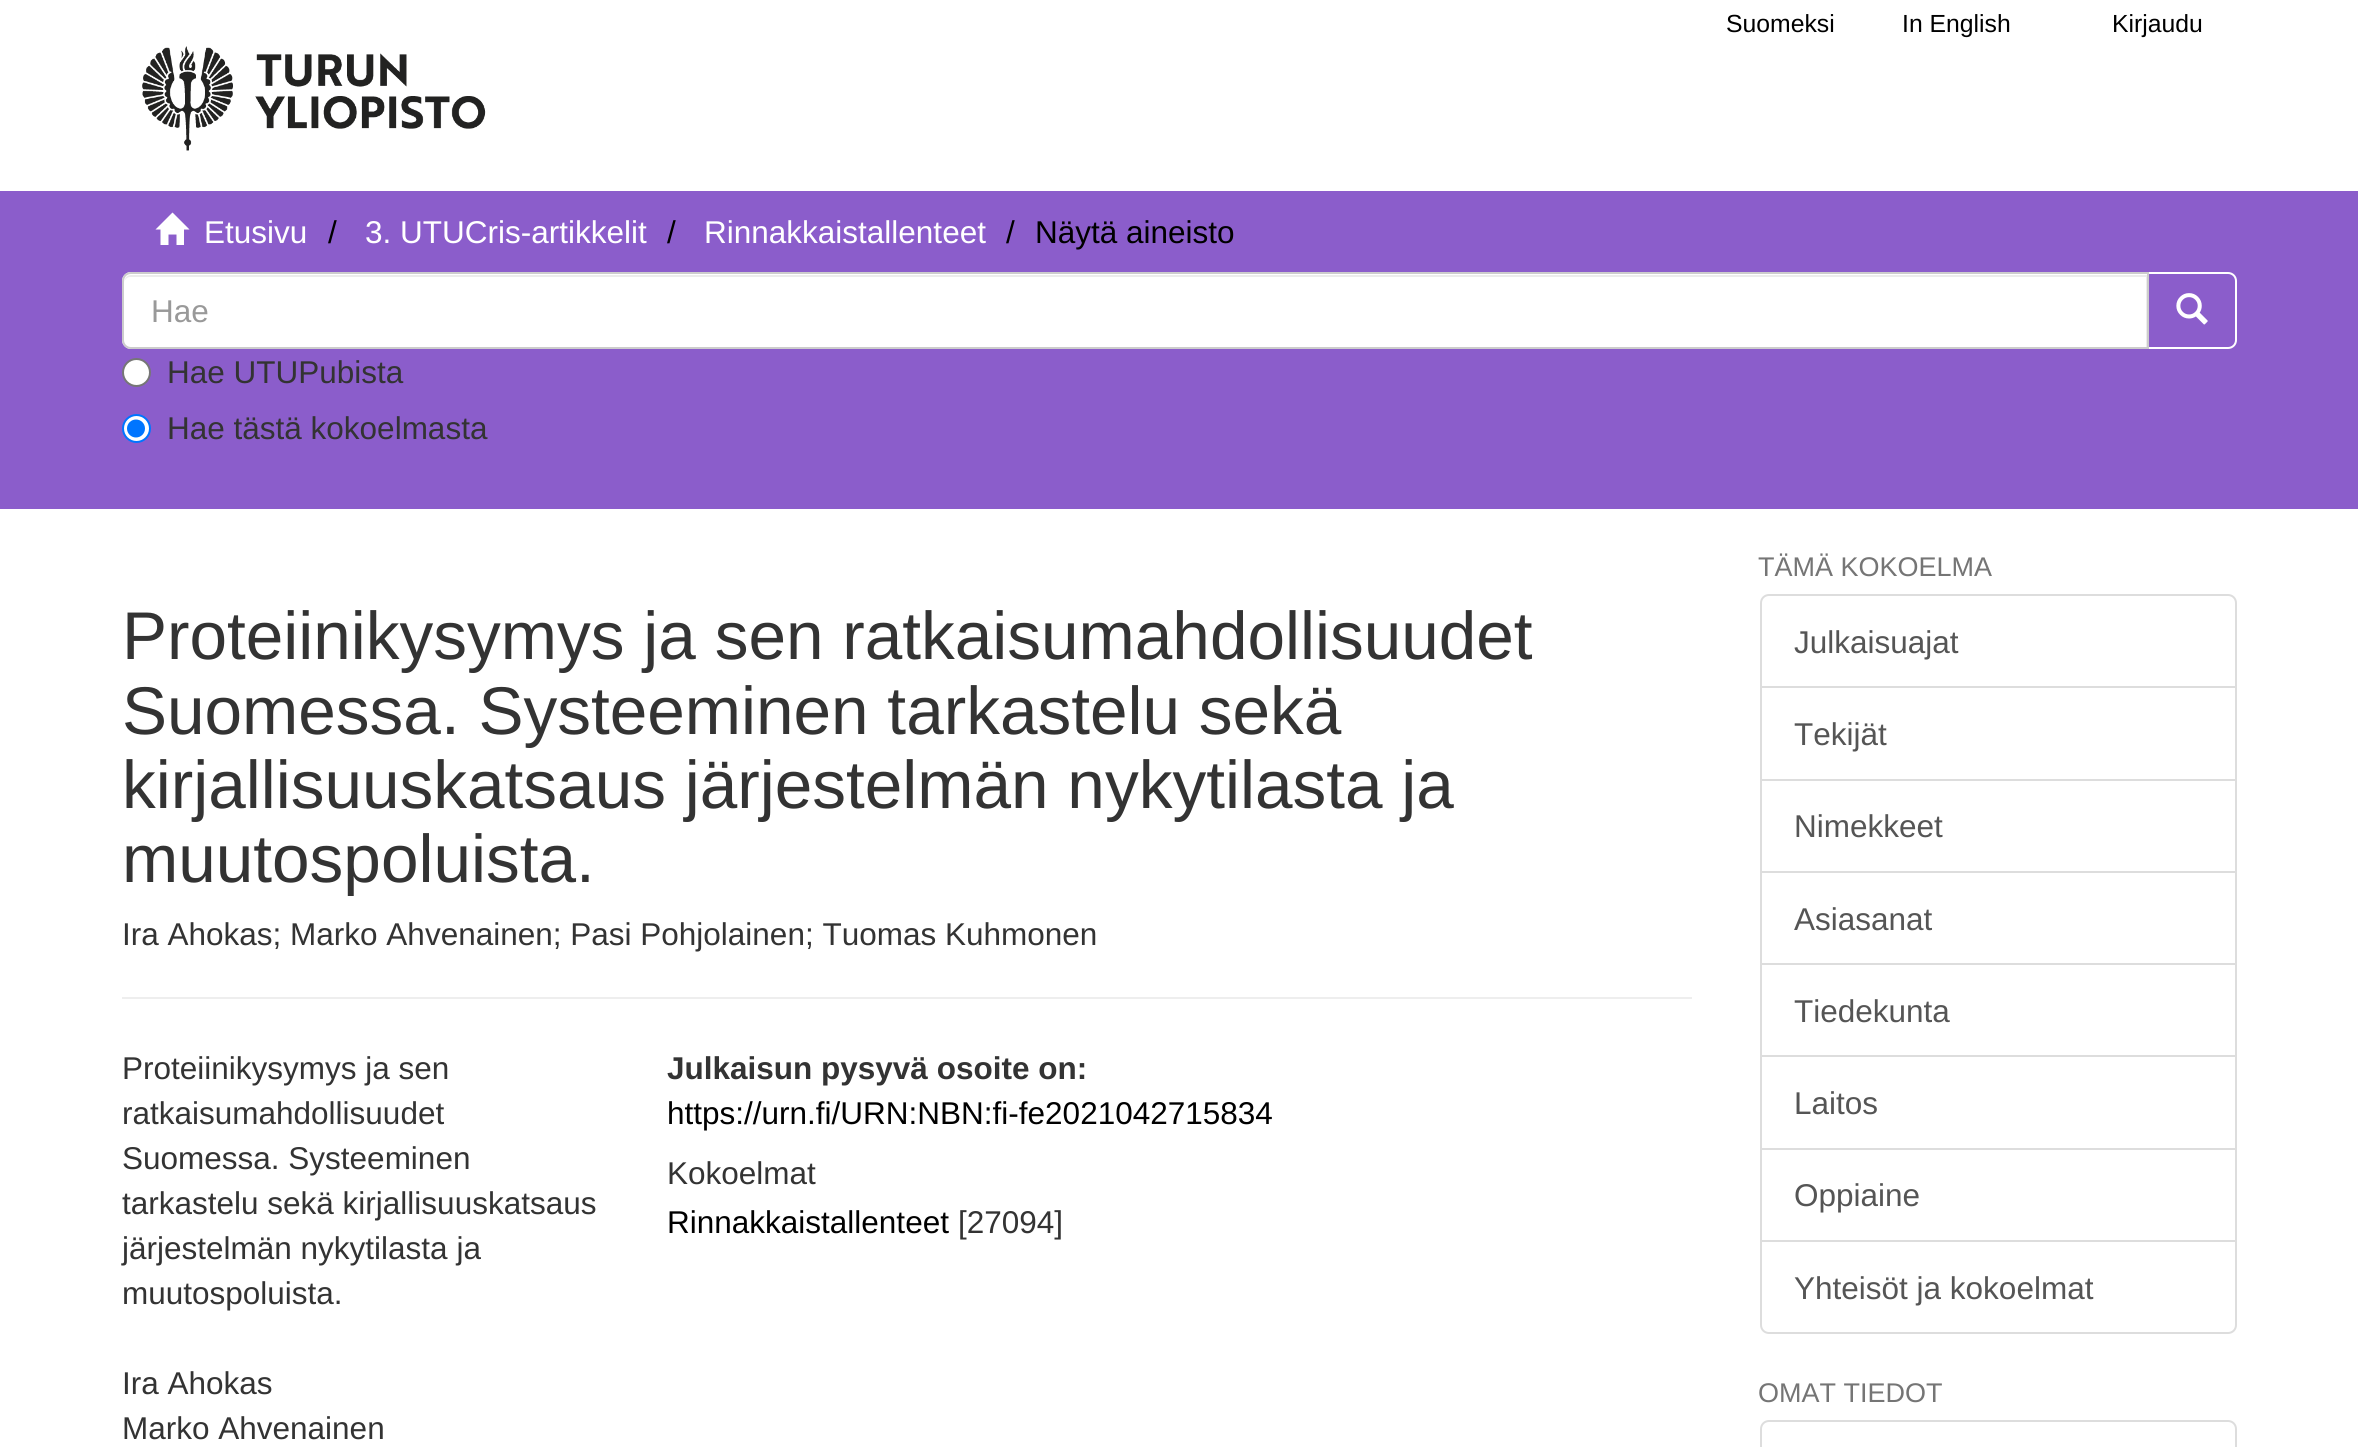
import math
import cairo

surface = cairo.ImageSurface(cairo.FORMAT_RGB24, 2358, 1447)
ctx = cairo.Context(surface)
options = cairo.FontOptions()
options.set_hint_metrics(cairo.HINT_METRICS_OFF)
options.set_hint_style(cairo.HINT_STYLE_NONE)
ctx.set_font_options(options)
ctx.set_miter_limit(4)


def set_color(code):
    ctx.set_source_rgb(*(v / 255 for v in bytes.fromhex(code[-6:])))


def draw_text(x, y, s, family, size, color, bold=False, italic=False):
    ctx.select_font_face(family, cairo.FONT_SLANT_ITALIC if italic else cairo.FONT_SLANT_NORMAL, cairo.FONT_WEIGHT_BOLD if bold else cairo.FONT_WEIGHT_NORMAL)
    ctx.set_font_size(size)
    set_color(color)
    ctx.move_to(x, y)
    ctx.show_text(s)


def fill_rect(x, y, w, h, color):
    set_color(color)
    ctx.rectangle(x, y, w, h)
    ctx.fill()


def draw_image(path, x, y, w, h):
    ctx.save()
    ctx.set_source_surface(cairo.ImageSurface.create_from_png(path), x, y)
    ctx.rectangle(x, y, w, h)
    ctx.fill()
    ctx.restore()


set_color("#ffffff")
ctx.paint()
draw_text(1726, 32, "Suomeksi", "Liberation Sans", 24.75, "#000000")
draw_text(1902, 32, "In English", "Liberation Sans", 24.75, "#000000")
draw_text(2112, 32, "Kirjaudu", "Liberation Sans", 24.75, "#000000")
draw_image("assets/img1.png", 142, 46, 344, 105)
fill_rect(0, 191, 2358, 318, "#8b5dcb")
set_color("#ffffff")
ctx.new_path()
ctx.move_to(155.5, 229.5)
ctx.line_to(172.5, 212.5)
ctx.line_to(189.5, 229.5)
ctx.line_to(184, 229.5)
ctx.line_to(184, 245)
ctx.line_to(176.5, 245)
ctx.line_to(176.5, 234.5)
ctx.line_to(168.5, 234.5)
ctx.line_to(168.5, 245)
ctx.line_to(160.5, 245)
ctx.line_to(160.5, 229.5)
ctx.close_path()
ctx.fill()
draw_text(204, 243, "Etusivu", "Liberation Sans", 31.5, "#ffffff")
draw_text(328, 243, "/", "Liberation Sans", 31.5, "#000000")
draw_text(365, 243, "3. UTUCris-artikkelit", "Liberation Sans", 31.5, "#ffffff")
draw_text(667, 243, "/", "Liberation Sans", 31.5, "#000000")
draw_text(704, 243, "Rinnakkaistallenteet", "Liberation Sans", 31.5, "#ffffff")
draw_text(1006, 243, "/", "Liberation Sans", 31.5, "#000000")
draw_text(1035, 243, "Näytä aineisto", "Liberation Sans", 31.5, "#000000")
ctx.new_path()
ctx.move_to(2148, 273)
ctx.line_to(2228, 273)
ctx.curve_to(2232.5, 273, 2236, 276.5, 2236, 281)
ctx.line_to(2236, 340)
ctx.curve_to(2236, 344.5, 2232.5, 348, 2228, 348)
ctx.line_to(2148, 348)
ctx.close_path()
set_color("#ffffff")
ctx.stroke()
ctx.new_path()
ctx.move_to(131, 272)
ctx.line_to(2149, 272)
ctx.line_to(2149, 349)
ctx.line_to(131, 349)
ctx.curve_to(126, 349, 122, 345, 122, 340)
ctx.line_to(122, 281)
ctx.curve_to(122, 276, 126, 272, 131, 272)
ctx.close_path()
ctx.fill()
set_color("#ececec")
ctx.new_path()
ctx.move_to(130, 277)
ctx.line_to(2146, 277)
ctx.line_to(2146, 347)
ctx.line_to(2147, 347)
ctx.line_to(2147, 275)
ctx.line_to(131, 275)
ctx.curve_to(126, 275, 124, 280, 124, 284)
ctx.curve_to(124, 280, 127, 277, 130, 277)
ctx.close_path()
ctx.fill()
ctx.new_path()
ctx.move_to(131, 273)
ctx.line_to(2148, 273)
ctx.line_to(2148, 348)
ctx.line_to(131, 348)
ctx.curve_to(126.5, 348, 123, 344.5, 123, 340)
ctx.line_to(123, 281)
ctx.curve_to(123, 276.5, 126.5, 273, 131, 273)
ctx.close_path()
set_color("#cccccc")
ctx.stroke()
draw_text(151, 322, "Hae", "Liberation Sans", 31.5, "#999999")
draw_image("assets/img2.png", 2176, 293, 32, 32)
set_color("#ffffff")
ctx.arc(136.5, 372.5, 13.5, 0, 2 * math.pi)
ctx.fill_preserve()
set_color("#767676")
ctx.stroke()
draw_text(167, 383, "Hae UTUPubista", "Liberation Sans", 31.5, "#333333")
set_color("#ffffff")
ctx.new_path()
ctx.arc(136.5, 428.5, 13.5, 0, 2 * math.pi)
ctx.fill_preserve()
set_color("#0075ff")
ctx.stroke()
ctx.arc(136, 428.5, 9, 0, 2 * math.pi)
ctx.fill()
draw_text(167, 439, "Hae tästä kokoelmasta", "Liberation Sans", 31.5, "#333333")
draw_text(122, 659, "Proteiinikysymys ja sen ratkaisumahdollisuudet", "Liberation Sans", 67.5, "#333333")
draw_text(122, 734, "Suomessa. Systeeminen tarkastelu sekä", "Liberation Sans", 67.5, "#333333")
draw_text(122, 808, "kirjallisuuskatsaus järjestelmän nykytilasta ja", "Liberation Sans", 67.5, "#333333")
draw_text(122, 882, "muutospoluista.", "Liberation Sans", 67.5, "#333333")
draw_text(122, 945, "Ira Ahokas; Marko Ahvenainen; Pasi Pohjolainen; Tuomas Kuhmonen", "Liberation Sans", 31.5, "#333333")
fill_rect(122, 997, 1570, 2, "#eeeeee")
draw_text(122, 1079, "Proteiinikysymys ja sen", "Liberation Sans", 31.5, "#333333")
draw_text(122, 1124, "ratkaisumahdollisuudet", "Liberation Sans", 31.5, "#333333")
draw_text(122, 1169, "Suomessa. Systeeminen", "Liberation Sans", 31.5, "#333333")
draw_text(122, 1214, "tarkastelu sekä kirjallisuuskatsaus", "Liberation Sans", 31.5, "#333333")
draw_text(122, 1259, "järjestelmän nykytilasta ja", "Liberation Sans", 31.5, "#333333")
draw_text(122, 1304, "muutospoluista.", "Liberation Sans", 31.5, "#333333")
draw_text(122, 1394, "Ira Ahokas", "Liberation Sans", 31.5, "#333333")
draw_text(122, 1439, "Marko Ahvenainen", "Liberation Sans", 31.5, "#333333")
draw_text(667, 1079, "Julkaisun pysyvä osoite on:", "Liberation Sans", 31.5, "#333333", bold=True)
draw_text(667, 1124, "https://urn.fi/URN:NBN:fi-fe2021042715834", "Liberation Sans", 31.5, "#000000")
draw_text(667, 1184, "Kokoelmat", "Liberation Sans", 31.5, "#333333")
draw_text(667, 1233, "Rinnakkaistallenteet", "Liberation Sans", 31.5, "#000000")
draw_text(958, 1233, "[27094]", "Liberation Sans", 31.5, "#333333")
draw_text(1758, 576, "TÄMÄ KOKOELMA", "Liberation Sans", 27, "#757575")
ctx.new_path()
ctx.move_to(1769, 595)
ctx.line_to(2228, 595)
ctx.curve_to(2232.5, 595, 2236, 598.5, 2236, 603)
ctx.line_to(2236, 688)
ctx.line_to(1761, 688)
ctx.line_to(1761, 603)
ctx.curve_to(1761, 598.5, 1764.5, 595, 1769, 595)
ctx.close_path()
set_color("#dddddd")
ctx.stroke()
draw_text(1794, 653, "Julkaisuajat", "Liberation Sans", 31.5, "#555555")
fill_rect(1762, 688, 473, 1, "#ffffff")
ctx.rectangle(1761, 687, 475, 93)
set_color("#dddddd")
ctx.stroke()
draw_text(1794, 745, "Tekijät", "Liberation Sans", 31.5, "#555555")
ctx.rectangle(1761, 780, 475, 92)
set_color("#dddddd")
ctx.stroke()
draw_text(1794, 837, "Nimekkeet", "Liberation Sans", 31.5, "#555555")
ctx.rectangle(1761, 872, 475, 92)
set_color("#dddddd")
ctx.stroke()
draw_text(1794, 930, "Asiasanat", "Liberation Sans", 31.5, "#555555")
ctx.rectangle(1761, 964, 475, 93)
set_color("#dddddd")
ctx.stroke()
draw_text(1794, 1022, "Tiedekunta", "Liberation Sans", 31.5, "#555555")
fill_rect(1762, 1057, 473, 1, "#ffffff")
ctx.rectangle(1761, 1056, 475, 93)
set_color("#dddddd")
ctx.stroke()
draw_text(1794, 1114, "Laitos", "Liberation Sans", 31.5, "#555555")
ctx.rectangle(1761, 1149, 475, 92)
set_color("#dddddd")
ctx.stroke()
draw_text(1794, 1206, "Oppiaine", "Liberation Sans", 31.5, "#555555")
set_color("#ffffff")
ctx.new_path()
ctx.move_to(1761, 1241)
ctx.line_to(2236, 1241)
ctx.line_to(2236, 1325)
ctx.curve_to(2236, 1329.5, 2232.5, 1333, 2228, 1333)
ctx.line_to(1769, 1333)
ctx.curve_to(1764.5, 1333, 1761, 1329.5, 1761, 1325)
ctx.close_path()
ctx.fill_preserve()
set_color("#dddddd")
ctx.stroke()
draw_text(1794, 1299, "Yhteisöt ja kokoelmat", "Liberation Sans", 31.5, "#555555")
draw_text(1758, 1402, "OMAT TIEDOT", "Liberation Sans", 27, "#757575")
ctx.new_path()
ctx.move_to(1769, 1421)
ctx.line_to(2228, 1421)
ctx.curve_to(2232.5, 1421, 2236, 1424.5, 2236, 1429)
ctx.line_to(2236, 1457)
ctx.line_to(1761, 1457)
ctx.line_to(1761, 1429)
ctx.curve_to(1761, 1424.5, 1764.5, 1421, 1769, 1421)
ctx.close_path()
set_color("#dddddd")
ctx.stroke()
surface.write_to_png("output.png")
